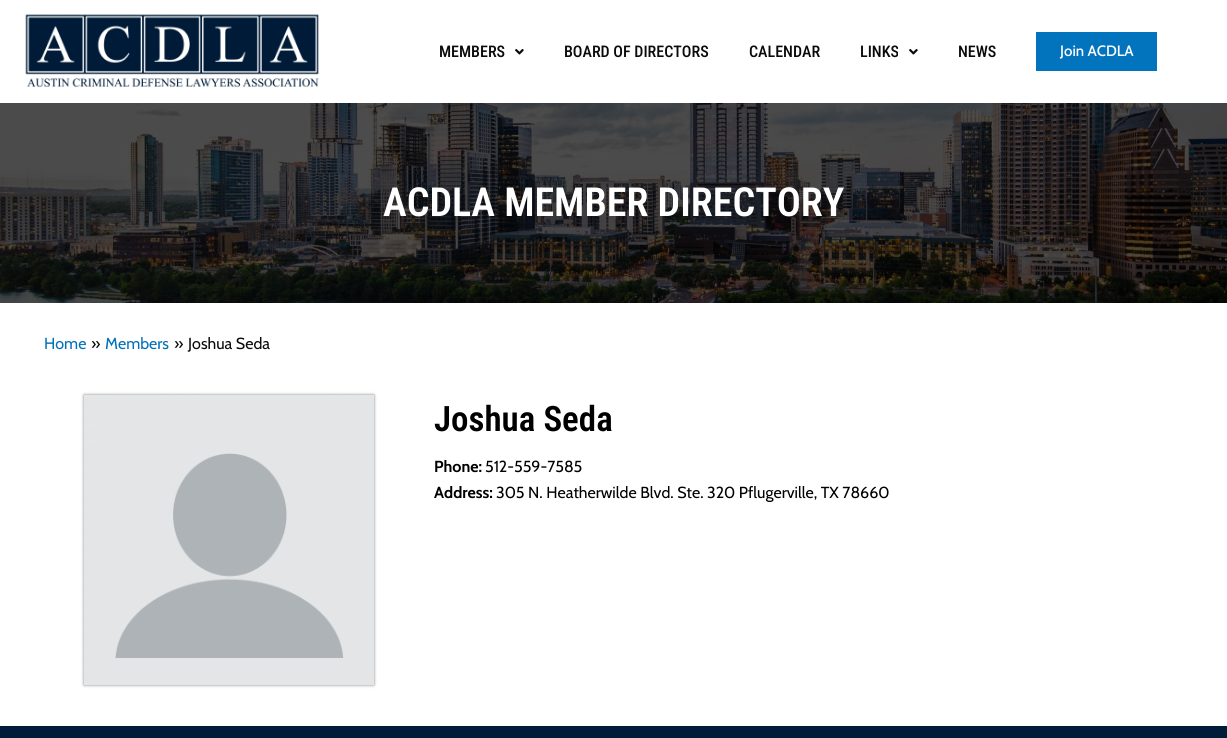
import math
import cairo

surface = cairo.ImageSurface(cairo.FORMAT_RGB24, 1227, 738)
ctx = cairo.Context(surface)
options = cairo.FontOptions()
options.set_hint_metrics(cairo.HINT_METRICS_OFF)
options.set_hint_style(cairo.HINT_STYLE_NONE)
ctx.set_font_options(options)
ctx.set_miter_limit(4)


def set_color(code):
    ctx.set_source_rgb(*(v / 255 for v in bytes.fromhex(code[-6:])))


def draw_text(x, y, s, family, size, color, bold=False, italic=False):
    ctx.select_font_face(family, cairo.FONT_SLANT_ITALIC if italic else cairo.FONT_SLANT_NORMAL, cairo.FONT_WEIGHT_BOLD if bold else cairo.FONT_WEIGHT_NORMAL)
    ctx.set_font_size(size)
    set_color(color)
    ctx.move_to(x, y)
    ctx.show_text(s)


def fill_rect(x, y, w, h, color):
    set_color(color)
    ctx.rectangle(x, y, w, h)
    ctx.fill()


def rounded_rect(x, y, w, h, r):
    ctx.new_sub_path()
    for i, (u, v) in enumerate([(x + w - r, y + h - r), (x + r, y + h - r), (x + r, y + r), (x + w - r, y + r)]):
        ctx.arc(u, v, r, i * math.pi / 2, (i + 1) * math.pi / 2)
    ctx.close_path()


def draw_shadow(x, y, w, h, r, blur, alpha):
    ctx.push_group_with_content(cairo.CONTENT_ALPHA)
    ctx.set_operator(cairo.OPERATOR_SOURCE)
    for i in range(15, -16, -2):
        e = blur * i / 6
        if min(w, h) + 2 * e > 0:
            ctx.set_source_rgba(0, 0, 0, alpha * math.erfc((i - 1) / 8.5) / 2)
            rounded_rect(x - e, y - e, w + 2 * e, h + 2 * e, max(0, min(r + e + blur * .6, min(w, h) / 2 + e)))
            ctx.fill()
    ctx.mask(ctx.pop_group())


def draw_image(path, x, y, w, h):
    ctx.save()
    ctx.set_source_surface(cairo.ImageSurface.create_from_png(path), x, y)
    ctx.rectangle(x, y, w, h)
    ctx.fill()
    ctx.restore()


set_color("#ffffff")
ctx.paint()
draw_image("assets/img1.png", 25, 14, 294, 74)
draw_text(439, 57, "MEMBERS", "Roboto Condensed Medium", 16, "#0a0a0a")
draw_image("assets/img2.png", 515, 49, 9, 6)
draw_text(564, 57, "BOARD OF DIRECTORS", "Roboto Condensed Medium", 16, "#0a0a0a")
draw_text(749, 57, "CALENDAR", "Roboto Condensed Medium", 16, "#0a0a0a")
draw_text(860, 57, "LINKS", "Roboto Condensed Medium", 16, "#0a0a0a")
draw_image("assets/img2.png", 909, 49, 9, 6)
draw_text(958, 57, "NEWS", "Roboto Condensed Medium", 16, "#0a0a0a")
fill_rect(1036, 32, 121, 39, "#0274be")
draw_text(1060, 56, "Join ACDLA", "Cabin Medium", 15, "#ffffff")
draw_image("assets/img3.png", 0, 103, 1227, 200)
draw_text(383, 216, "ACDLA MEMBER DIRECTORY", "Roboto Condensed SemiBold", 40, "#ffffff")
draw_text(44, 349, "Home", "Cabin", 16, "#0170b9")
draw_text(91, 349, "»", "Cabin", 16, "#0a0a0a")
draw_text(105, 349, "Members", "Cabin", 16, "#0170b9")
draw_text(174, 349, "»", "Cabin", 16, "#0a0a0a")
draw_text(188, 349, "Joshua Seda", "Cabin", 16, "#0a0a0a")
set_color("#000000")
draw_shadow(84, 395, 290, 290, 0, 1.5, 0.5)
draw_image("assets/img4.png", 84, 395, 290, 290)
draw_text(434, 431, "Joshua Seda", "Roboto Condensed SemiBold", 35, "#000000")
draw_text(434, 472, "Phone:", "Cabin", 16, "#000000", bold=True)
draw_text(485, 472, "512-559-7585", "Cabin", 16, "#000000")
draw_text(434, 498, "Address:", "Cabin", 16, "#000000", bold=True)
draw_text(496, 498, "305 N. Heatherwilde Blvd. Ste. 320 Pflugerville, TX 78660", "Cabin", 16, "#000000")
fill_rect(0, 726, 1227, 12, "#001c38")
surface.write_to_png("output.png")
